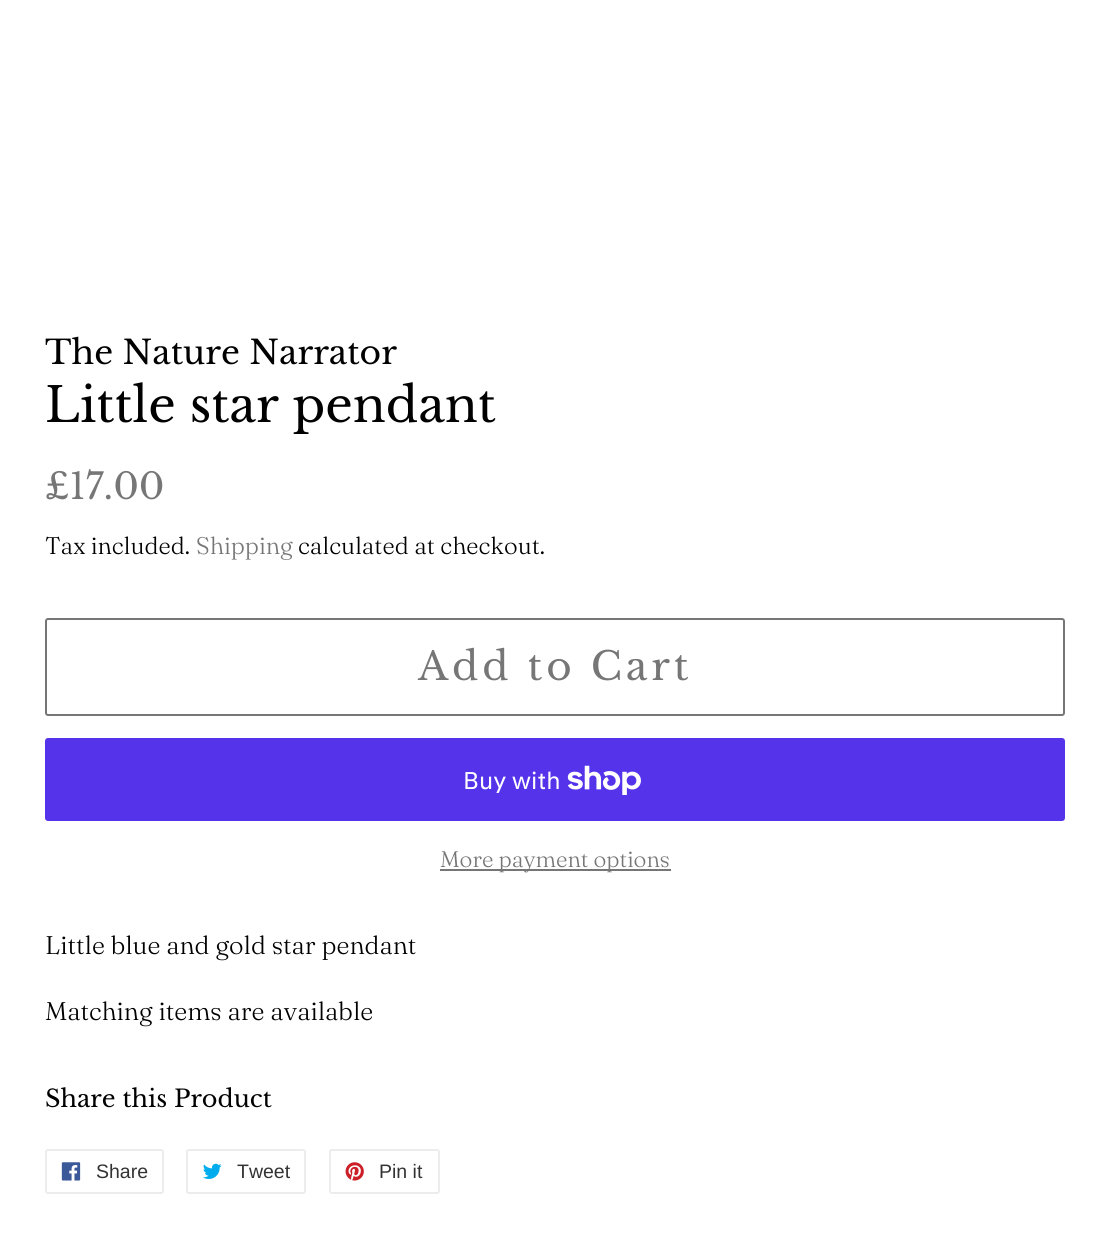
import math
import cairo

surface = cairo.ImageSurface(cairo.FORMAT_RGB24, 1109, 1249)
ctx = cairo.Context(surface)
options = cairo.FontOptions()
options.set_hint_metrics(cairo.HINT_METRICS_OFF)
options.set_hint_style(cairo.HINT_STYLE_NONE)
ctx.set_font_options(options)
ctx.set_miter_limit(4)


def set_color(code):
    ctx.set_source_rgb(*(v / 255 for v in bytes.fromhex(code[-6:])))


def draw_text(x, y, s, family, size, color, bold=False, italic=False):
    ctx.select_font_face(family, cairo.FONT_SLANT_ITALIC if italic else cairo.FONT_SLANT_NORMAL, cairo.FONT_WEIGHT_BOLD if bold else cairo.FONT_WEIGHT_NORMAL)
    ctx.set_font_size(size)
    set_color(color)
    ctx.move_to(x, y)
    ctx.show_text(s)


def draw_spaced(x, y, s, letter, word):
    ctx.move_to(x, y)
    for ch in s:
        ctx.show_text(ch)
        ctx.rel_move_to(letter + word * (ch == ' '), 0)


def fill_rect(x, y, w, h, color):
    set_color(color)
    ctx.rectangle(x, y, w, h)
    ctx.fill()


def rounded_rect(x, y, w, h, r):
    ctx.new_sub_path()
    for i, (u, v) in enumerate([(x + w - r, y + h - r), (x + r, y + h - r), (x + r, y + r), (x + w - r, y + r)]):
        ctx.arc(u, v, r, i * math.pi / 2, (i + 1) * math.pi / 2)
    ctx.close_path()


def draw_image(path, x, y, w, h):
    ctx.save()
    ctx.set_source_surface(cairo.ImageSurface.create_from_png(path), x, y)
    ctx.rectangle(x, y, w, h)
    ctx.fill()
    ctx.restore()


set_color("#ffffff")
ctx.paint()
draw_text(45, 364, "The Nature Narrator", "Libre Baskerville", 33, "#000000")
draw_text(45, 422, "Little star pendant", "Libre Baskerville", 48, "#000000")
draw_text(45, 499, "£17.00", "Libre Baskerville", 36, "#767676")
draw_text(45, 554, "Tax included.", "Fraunces Light", 24, "#000000")
draw_text(196, 554, "Shipping", "Fraunces Light", 24, "#767676")
draw_text(298, 554, "calculated at checkout.", "Fraunces Light", 24, "#000000")
rounded_rect(46, 619, 1018, 96, 2)
set_color("#767676")
ctx.stroke()
ctx.select_font_face("Libre Baskerville")
ctx.set_font_size(39)
draw_spaced(418, 680, "Add to Cart", 3.9, 0)
set_color("#5433eb")
rounded_rect(45, 738, 1020, 83, 3)
ctx.fill()
draw_text(463, 789, "Buy with", "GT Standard", 24, "#ffffff")
draw_image("assets/img1.png", 567, 765, 74, 30)
fill_rect(440, 869, 231, 2, "#767676")
draw_text(440, 867, "More payment options", "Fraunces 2 Light", 22.5, "#767676")
draw_text(45, 954, "Little blue and gold star pendant", "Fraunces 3 Light", 25.5, "#000000")
draw_text(45, 1020, "Matching items are available", "Fraunces 3 Light", 25.5, "#000000")
draw_text(45, 1107, "Share this Product", "Libre Baskerville", 24, "#000000")
rounded_rect(46, 1150, 117, 43, 2)
set_color("#ececec")
ctx.stroke()
draw_image("assets/img2.png", 61, 1162, 20, 19)
draw_text(96, 1178, "Share", "Liberation Sans", 19.5, "#333333")
rounded_rect(187, 1150, 118, 43, 2)
set_color("#ececec")
ctx.stroke()
draw_image("assets/img3.png", 203, 1163, 19, 16)
draw_text(237, 1178, "Tweet", "Liberation Sans", 19.5, "#333333")
rounded_rect(330, 1150, 109, 43, 2)
set_color("#ececec")
ctx.stroke()
draw_image("assets/img4.png", 345, 1162, 19, 19)
draw_text(379, 1178, "Pin it", "Liberation Sans", 19.5, "#333333")
surface.write_to_png("output.png")
